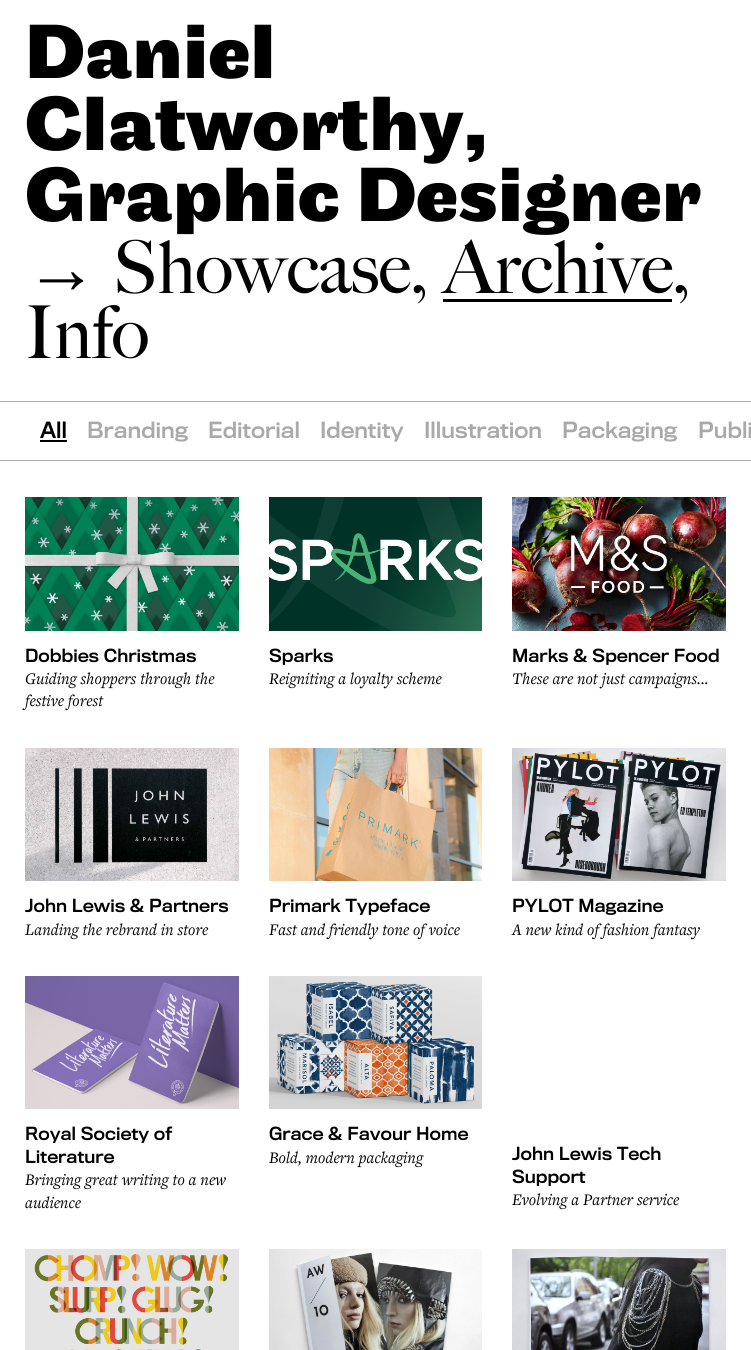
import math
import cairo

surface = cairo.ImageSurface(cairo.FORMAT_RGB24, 751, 1350)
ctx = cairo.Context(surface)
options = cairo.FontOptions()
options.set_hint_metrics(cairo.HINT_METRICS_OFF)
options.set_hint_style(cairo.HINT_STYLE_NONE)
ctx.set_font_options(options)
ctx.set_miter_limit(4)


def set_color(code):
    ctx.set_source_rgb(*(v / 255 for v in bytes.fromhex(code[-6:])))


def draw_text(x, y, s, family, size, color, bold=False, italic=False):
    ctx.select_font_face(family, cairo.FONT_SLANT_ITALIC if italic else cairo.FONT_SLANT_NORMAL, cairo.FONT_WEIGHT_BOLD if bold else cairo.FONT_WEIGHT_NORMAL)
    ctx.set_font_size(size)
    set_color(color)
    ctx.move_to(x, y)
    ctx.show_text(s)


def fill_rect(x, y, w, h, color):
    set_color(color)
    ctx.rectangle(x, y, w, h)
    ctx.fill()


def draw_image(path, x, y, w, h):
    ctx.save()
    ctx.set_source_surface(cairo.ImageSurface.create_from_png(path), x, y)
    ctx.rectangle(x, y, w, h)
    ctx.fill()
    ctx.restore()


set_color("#ffffff")
ctx.paint()
draw_text(25, 78, "Daniel", "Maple", 80, "#000000", bold=True)
draw_text(25, 150, "Clatworthy,", "Maple", 80, "#000000", bold=True)
draw_text(25, 221, "Graphic Designer", "Maple", 80, "#000000", bold=True)
draw_text(25, 293, "→", "Liberation Serif", 73, "#000000")
draw_text(113, 293, "Showcase", "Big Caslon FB", 73, "#000000")
draw_text(410, 293, ", Archive", "Big Caslon FB", 73, "#000000")
fill_rect(443, 299, 229, 3, "#000000")
draw_text(672, 293, ",", "Big Caslon FB", 73, "#000000")
draw_text(25, 358, "Info", "Big Caslon FB", 73, "#000000")
fill_rect(0, 401, 751, 1, "#a9a9a9")
fill_rect(0, 460, 751, 1, "#a9a9a9")
draw_text(40, 438, "All", "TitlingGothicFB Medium", 20.75, "#000000")
fill_rect(40, 440, 27, 2, "#000000")
draw_text(87, 438, "Branding", "TitlingGothicFB Medium", 20.75, "#a9a9a9")
draw_text(208, 438, "Editorial", "TitlingGothicFB Medium", 20.75, "#a9a9a9")
draw_text(320, 438, "Identity", "TitlingGothicFB Medium", 20.75, "#a9a9a9")
draw_text(424, 438, "Illustration", "TitlingGothicFB Medium", 20.75, "#a9a9a9")
draw_text(562, 438, "Packaging", "TitlingGothicFB Medium", 20.75, "#a9a9a9")
draw_text(698, 438, "Publi", "TitlingGothicFB Medium", 20.75, "#a9a9a9")
draw_image("assets/img1.png", 25, 497, 214, 134)
draw_text(25, 662, "Dobbies Christmas", "TitlingGothicFB Medium", 16.8, "#000000")
draw_text(25, 684, "Guiding shoppers through the", "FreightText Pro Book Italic", 16.8, "#000000", italic=True)
draw_text(25, 706, "festive forest", "FreightText Pro Book Italic", 16.8, "#000000", italic=True)
draw_image("assets/img2.png", 269, 497, 213, 134)
draw_text(269, 662, "Sparks", "TitlingGothicFB Medium", 16.8, "#000000")
draw_text(269, 684, "Reigniting a loyalty scheme", "FreightText Pro Book Italic", 16.8, "#000000", italic=True)
draw_image("assets/img3.png", 512, 497, 214, 134)
draw_text(512, 662, "Marks & Spencer Food", "TitlingGothicFB Medium", 16.8, "#000000")
draw_text(512, 684, "These are not just campaigns...", "FreightText Pro Book Italic", 16.8, "#000000", italic=True)
draw_image("assets/img4.png", 25, 748, 214, 133)
draw_text(25, 912, "John Lewis & Partners", "TitlingGothicFB Medium", 16.8, "#000000")
draw_text(25, 935, "Landing the rebrand in store", "FreightText Pro Book Italic", 16.8, "#000000", italic=True)
draw_image("assets/img5.png", 269, 748, 213, 133)
draw_text(269, 912, "Primark Typeface", "TitlingGothicFB Medium", 16.8, "#000000")
draw_text(269, 935, "Fast and friendly tone of voice", "FreightText Pro Book Italic", 16.8, "#000000", italic=True)
draw_image("assets/img6.png", 512, 748, 214, 133)
draw_text(512, 912, "PYLOT Magazine", "TitlingGothicFB Medium", 16.8, "#000000")
draw_text(512, 935, "A new kind of fashion fantasy", "FreightText Pro Book Italic", 16.8, "#000000", italic=True)
draw_image("assets/img7.png", 25, 976, 214, 133)
draw_text(25, 1140, "Royal Society of", "TitlingGothicFB Medium", 16.8, "#000000")
draw_text(25, 1163, "Literature", "TitlingGothicFB Medium", 16.8, "#000000")
draw_text(25, 1185, "Bringing great writing to a new", "FreightText Pro Book Italic", 16.8, "#000000", italic=True)
draw_text(25, 1208, "audience", "FreightText Pro Book Italic", 16.8, "#000000", italic=True)
draw_image("assets/img8.png", 269, 976, 213, 133)
draw_text(269, 1140, "Grace & Favour Home", "TitlingGothicFB Medium", 16.8, "#000000")
draw_text(269, 1163, "Bold, modern packaging", "FreightText Pro Book Italic", 16.8, "#000000", italic=True)
draw_text(512, 1160, "John Lewis Tech", "TitlingGothicFB Medium", 16.8, "#000000")
draw_text(512, 1183, "Support", "TitlingGothicFB Medium", 16.8, "#000000")
draw_text(512, 1205, "Evolving a Partner service", "FreightText Pro Book Italic", 16.8, "#000000", italic=True)
draw_image("assets/img9.png", 25, 1249, 214, 101)
draw_image("assets/img10.png", 269, 1249, 213, 101)
draw_image("assets/img11.png", 512, 1249, 214, 101)
surface.write_to_png("output.png")
